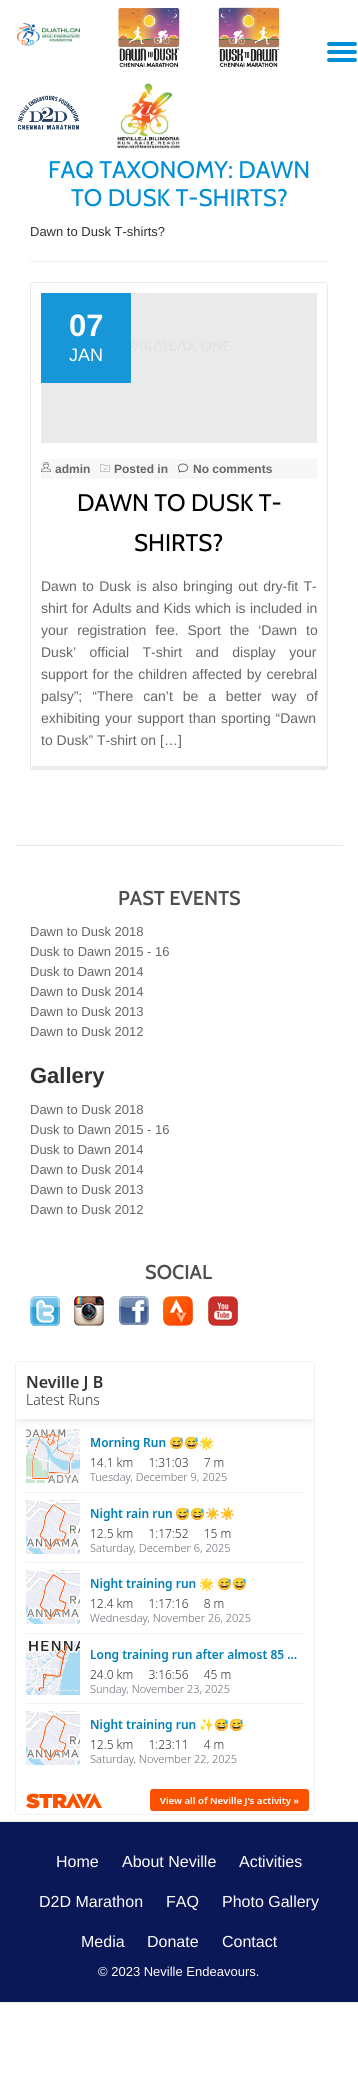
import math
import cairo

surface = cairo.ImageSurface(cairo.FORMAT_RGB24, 358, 2087)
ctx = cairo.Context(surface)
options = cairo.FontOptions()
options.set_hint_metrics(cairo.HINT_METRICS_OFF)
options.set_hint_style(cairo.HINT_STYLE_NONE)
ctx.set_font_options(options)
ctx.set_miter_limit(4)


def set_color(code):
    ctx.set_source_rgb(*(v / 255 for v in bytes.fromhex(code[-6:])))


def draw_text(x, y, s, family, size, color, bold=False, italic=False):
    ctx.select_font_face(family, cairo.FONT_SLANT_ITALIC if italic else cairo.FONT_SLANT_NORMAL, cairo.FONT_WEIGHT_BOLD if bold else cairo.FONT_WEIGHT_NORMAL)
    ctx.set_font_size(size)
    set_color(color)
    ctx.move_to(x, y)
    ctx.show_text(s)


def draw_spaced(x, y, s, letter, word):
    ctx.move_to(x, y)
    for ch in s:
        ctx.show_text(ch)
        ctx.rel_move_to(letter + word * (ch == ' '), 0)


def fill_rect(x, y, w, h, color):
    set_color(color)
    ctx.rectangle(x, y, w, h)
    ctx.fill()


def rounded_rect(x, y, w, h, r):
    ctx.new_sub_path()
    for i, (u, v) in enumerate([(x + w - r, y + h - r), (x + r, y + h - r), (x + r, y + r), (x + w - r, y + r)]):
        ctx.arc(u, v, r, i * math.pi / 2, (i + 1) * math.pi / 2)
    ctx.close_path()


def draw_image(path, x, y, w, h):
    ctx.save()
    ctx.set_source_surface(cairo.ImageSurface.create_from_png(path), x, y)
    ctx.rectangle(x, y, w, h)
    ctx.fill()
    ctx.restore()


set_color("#ffffff")
ctx.paint()
draw_image("assets/img1.png", 17, 23, 63, 23)
draw_image("assets/img2.png", 118, 8, 62, 59)
draw_image("assets/img3.png", 218, 7, 62, 60)
set_color("#008ed6")
rounded_rect(327, 42, 30, 4, 2)
ctx.fill()
rounded_rect(327, 50, 30, 4, 2)
ctx.fill()
rounded_rect(327, 58, 30, 4, 2)
ctx.fill()
draw_image("assets/img4.png", 17, 95, 63, 35)
draw_image("assets/img5.png", 117, 82, 63, 67)
fill_rect(30, 261, 298, 1, "#eeeeee")
draw_text(48, 178, "FAQ TAXONOMY: DAWN", "Cabin", 24, "#008ed6")
draw_text(71, 206, "TO DUSK T-SHIRTS?", "Cabin", 24, "#008ed6")
draw_text(30, 236, "Dawn to Dusk T-shirts?", "Liberation Sans", 13, "#313131")
rounded_rect(30.5, 282.5, 297, 487, 2.5)
set_color("#eaeaea")
ctx.set_line_width(1)
ctx.stroke()
fill_rect(32, 766, 295, 3, "#eaeaea")
fill_rect(41, 293, 276, 150, "#eaeaea")
draw_image("assets/img6.png", 128, 341, 103, 11)
ctx.set_source_rgba(0, 0.557, 0.839, 0.9)
ctx.rectangle(41, 293, 90, 90)
ctx.fill()
draw_text(69, 336, "07", "Liberation Sans", 31, "#ffffff", bold=True)
draw_text(69, 361, "JAN", "Liberation Sans", 18, "#ffffff")
fill_rect(41, 459, 276, 20, "#f7f7f7")
draw_image("assets/img7.png", 41, 462, 10, 10)
draw_text(55, 473, "admin", "Liberation Sans", 12, "#666666", bold=True)
draw_image("assets/img8.png", 100, 464, 10, 8)
draw_text(114, 473, "Posted in", "Liberation Sans", 12, "#666666", bold=True)
draw_image("assets/img9.png", 178, 463, 10, 10)
draw_text(193, 473, "No comments", "Liberation Sans", 12, "#666666", bold=True)
draw_text(77, 511, "DAWN TO DUSK T-", "Cabin", 24, "#000000")
draw_text(134, 551, "SHIRTS?", "Cabin", 24, "#000000")
ctx.select_font_face("Liberation Sans")
ctx.set_font_size(14)
set_color("#666666")
draw_spaced(41, 591, "Dawn to Dusk is also bringing out dry-fit T-", 0, 1.5)
draw_spaced(41, 613, "shirt for Adults and Kids which is included in", 0, 0.5)
draw_spaced(41, 635, "your registration fee. Sport the ‘Dawn to", 0, 5)
draw_spaced(41, 657, "Dusk’ official T-shirt and display your", 0, 9.5)
draw_spaced(41, 679, "support for the children affected by cerebral", 0, 1)
draw_spaced(41, 701, "palsy”; “There can’t be a better way of", 0, 6)
draw_spaced(41, 723, "exhibiting your support than sporting “Dawn", 0, 1)
draw_text(41, 745, "to Dusk” T-shirt on […]", "Liberation Sans", 14, "#666666")
fill_rect(15, 845, 328, 1, "#e7e7e7")
draw_text(118, 905, "PAST EVENTS", "Cabin SemiBold", 20, "#4f4f4f")
draw_text(30, 936, "Dawn to Dusk 2018", "Liberation Sans", 13, "#666666")
draw_text(30, 956, "Dusk to Dawn 2015 - 16", "Liberation Sans", 13, "#666666")
draw_text(30, 976, "Dusk to Dawn 2014", "Liberation Sans", 13, "#666666")
draw_text(30, 996, "Dawn to Dusk 2014", "Liberation Sans", 13, "#666666")
draw_text(30, 1016, "Dawn to Dusk 2013", "Liberation Sans", 13, "#666666")
draw_text(30, 1036, "Dawn to Dusk 2012", "Liberation Sans", 13, "#666666")
draw_text(30, 1083, "Gallery", "Liberation Sans", 22, "#313131", bold=True)
draw_text(30, 1114, "Dawn to Dusk 2018", "Liberation Sans", 13, "#666666")
draw_text(30, 1134, "Dusk to Dawn 2015 - 16", "Liberation Sans", 13, "#666666")
draw_text(30, 1154, "Dusk to Dawn 2014", "Liberation Sans", 13, "#666666")
draw_text(30, 1174, "Dawn to Dusk 2014", "Liberation Sans", 13, "#666666")
draw_text(30, 1194, "Dawn to Dusk 2013", "Liberation Sans", 13, "#666666")
draw_text(30, 1214, "Dawn to Dusk 2012", "Liberation Sans", 13, "#666666")
draw_text(145, 1279, "SOCIAL", "Cabin SemiBold", 20, "#4f4f4f")
draw_image("assets/img10.png", 30, 1296, 30, 30)
draw_image("assets/img11.png", 74, 1296, 30, 30)
draw_image("assets/img12.png", 119, 1296, 30, 29)
draw_image("assets/img13.png", 163, 1296, 30, 30)
draw_image("assets/img14.png", 208, 1296, 30, 30)
draw_image("assets/img15.png", 15, 1361, 300, 454)
fill_rect(0, 1822, 358, 180, "#0a1857")
fill_rect(0, 1821, 358, 1, "#eaebec")
fill_rect(0, 2002, 358, 1, "#eaebec")
draw_text(56, 1867, "Home", "Liberation Sans", 16, "#ffffff")
draw_text(122, 1867, "About Neville", "Liberation Sans", 16, "#ffffff")
draw_text(239, 1867, "Activities", "Liberation Sans", 16, "#ffffff")
draw_text(39, 1907, "D2D Marathon", "Liberation Sans", 16, "#ffffff")
draw_text(166, 1907, "FAQ", "Liberation Sans", 16, "#ffffff")
draw_text(222, 1907, "Photo Gallery", "Liberation Sans", 16, "#ffffff")
draw_text(81, 1947, "Media", "Liberation Sans", 16, "#ffffff")
draw_text(147, 1947, "Donate", "Liberation Sans", 16, "#ffffff")
draw_text(222, 1947, "Contact", "Liberation Sans", 16, "#ffffff")
draw_text(98, 1976, "© 2023 Neville Endeavours.", "Liberation Sans", 13, "#ffffff")
surface.write_to_png("output.png")
